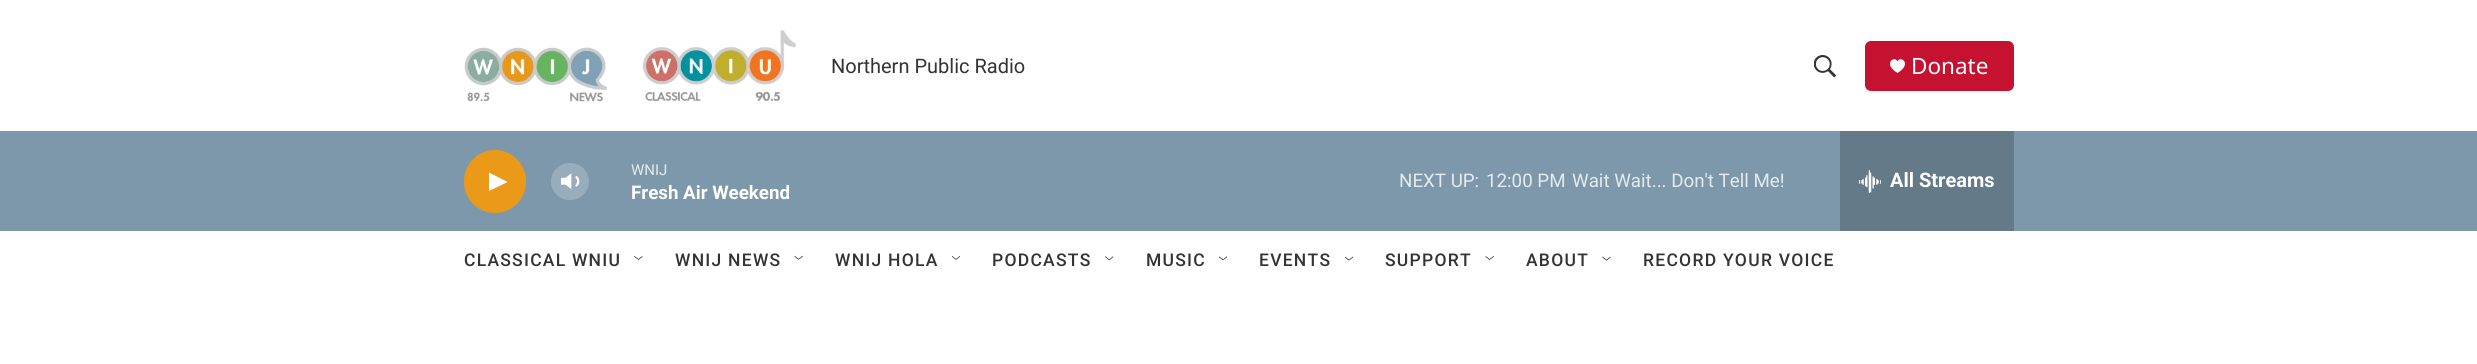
import math
import cairo

surface = cairo.ImageSurface(cairo.FORMAT_RGB24, 2477, 364)
ctx = cairo.Context(surface)
options = cairo.FontOptions()
options.set_hint_metrics(cairo.HINT_METRICS_OFF)
options.set_hint_style(cairo.HINT_STYLE_NONE)
ctx.set_font_options(options)
ctx.set_miter_limit(4)


def set_color(code):
    ctx.set_source_rgb(*(v / 255 for v in bytes.fromhex(code[-6:])))


def draw_text(x, y, s, family, size, color, bold=False, italic=False):
    ctx.select_font_face(family, cairo.FONT_SLANT_ITALIC if italic else cairo.FONT_SLANT_NORMAL, cairo.FONT_WEIGHT_BOLD if bold else cairo.FONT_WEIGHT_NORMAL)
    ctx.set_font_size(size)
    set_color(color)
    ctx.move_to(x, y)
    ctx.show_text(s)


def draw_spaced(x, y, s, letter, word):
    ctx.move_to(x, y)
    for ch in s:
        ctx.show_text(ch)
        ctx.rel_move_to(letter + word * (ch == ' '), 0)


def fill_rect(x, y, w, h, color):
    set_color(color)
    ctx.rectangle(x, y, w, h)
    ctx.fill()


def rounded_rect(x, y, w, h, r):
    ctx.new_sub_path()
    for i, (u, v) in enumerate([(x + w - r, y + h - r), (x + r, y + h - r), (x + r, y + r), (x + w - r, y + r)]):
        ctx.arc(u, v, r, i * math.pi / 2, (i + 1) * math.pi / 2)
    ctx.close_path()


def draw_image(path, x, y, w, h):
    ctx.save()
    ctx.set_source_surface(cairo.ImageSurface.create_from_png(path), x, y)
    ctx.rectangle(x, y, w, h)
    ctx.fill()
    ctx.restore()


set_color("#ffffff")
ctx.paint()
draw_image("assets/img1.png", 464, 30, 332, 72)
draw_text(831, 73, "Northern Public Radio", "Roboto", 20, "#333333")
draw_image("assets/img2.png", 1814, 55, 22, 23)
set_color("#c41230")
rounded_rect(1865, 41, 149, 50, 6)
ctx.fill()
set_color("#ffffff")
ctx.new_path()
ctx.move_to(1897.5, 61.5)
ctx.curve_to(1895, 55, 1882, 63.5, 1897.5, 73)
ctx.curve_to(1913, 63.5, 1900, 55, 1897.5, 61.5)
ctx.close_path()
ctx.fill()
draw_text(1911, 74, "Donate", "Noto Sans", 22.5, "#ffffff")
fill_rect(0, 131, 2477, 100, "#7d98ab")
set_color("#ea9919")
rounded_rect(464, 150, 62, 63, 31)
ctx.fill()
set_color("#ffffff")
ctx.new_path()
ctx.move_to(489, 172.5)
ctx.line_to(507.5, 182)
ctx.line_to(489, 191)
ctx.close_path()
ctx.fill()
draw_image("assets/img3.png", 561, 173, 19, 17)
ctx.set_source_rgba(1, 1, 1, 0.2)
rounded_rect(551, 163, 38, 37, 18.5)
ctx.fill()
draw_text(631, 175, "WNIJ", "Roboto", 15, "#e5eaee")
draw_text(631, 199, "Fresh Air Weekend", "Roboto", 18.75, "#ffffff", bold=True)
draw_text(1399, 187, "NEXT UP:", "Roboto", 18.75, "#e5eaee")
draw_text(1486, 187, "12:00 PM", "Roboto", 18.75, "#e5eaee")
draw_text(1572, 187, "Wait Wait... Don't Tell Me!", "Roboto", 18.75, "#e5eaee")
fill_rect(1840, 131, 174, 100, "#647a89")
draw_image("assets/img4.png", 1859, 170, 22, 23)
draw_text(1890, 187, "All Streams", "Roboto", 20, "#ffffff", bold=True)
ctx.select_font_face("Roboto Medium")
ctx.set_font_size(17.5)
set_color("#333333")
draw_spaced(464, 266, "CLASSICAL WNIU", 1.25, 0)
draw_image("assets/img5.png", 634, 256, 9, 4)
draw_spaced(675, 266, "WNIJ NEWS", 1.25, 0)
draw_image("assets/img6.png", 794, 255, 9, 5)
draw_spaced(835, 266, "WNIJ HOLA", 1.25, 0)
draw_image("assets/img7.png", 951, 255, 9, 5)
draw_spaced(992, 266, "PODCASTS", 1.25, 0)
draw_image("assets/img8.png", 1105, 256, 9, 5)
draw_spaced(1146, 266, "MUSIC", 1.25, 0)
draw_image("assets/img9.png", 1218, 256, 10, 5)
draw_spaced(1259, 266, "EVENTS", 1.25, 0)
draw_image("assets/img10.png", 1345, 256, 8, 5)
draw_spaced(1385, 266, "SUPPORT", 1.25, 0)
draw_image("assets/img11.png", 1485, 256, 9, 4)
draw_spaced(1526, 266, "ABOUT", 1.25, 0)
draw_image("assets/img12.png", 1602, 256, 9, 5)
draw_spaced(1643, 266, "RECORD YOUR VOICE", 1.25, 0)
surface.write_to_png("output.png")
